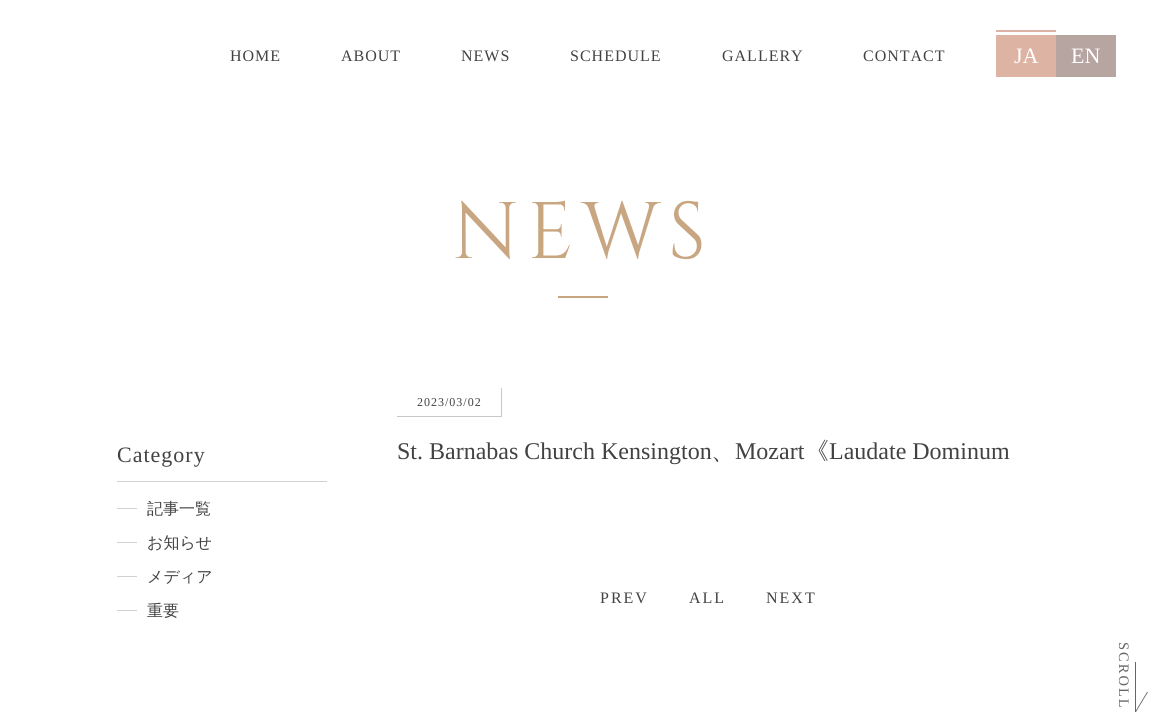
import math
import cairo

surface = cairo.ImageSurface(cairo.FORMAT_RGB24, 1166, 719)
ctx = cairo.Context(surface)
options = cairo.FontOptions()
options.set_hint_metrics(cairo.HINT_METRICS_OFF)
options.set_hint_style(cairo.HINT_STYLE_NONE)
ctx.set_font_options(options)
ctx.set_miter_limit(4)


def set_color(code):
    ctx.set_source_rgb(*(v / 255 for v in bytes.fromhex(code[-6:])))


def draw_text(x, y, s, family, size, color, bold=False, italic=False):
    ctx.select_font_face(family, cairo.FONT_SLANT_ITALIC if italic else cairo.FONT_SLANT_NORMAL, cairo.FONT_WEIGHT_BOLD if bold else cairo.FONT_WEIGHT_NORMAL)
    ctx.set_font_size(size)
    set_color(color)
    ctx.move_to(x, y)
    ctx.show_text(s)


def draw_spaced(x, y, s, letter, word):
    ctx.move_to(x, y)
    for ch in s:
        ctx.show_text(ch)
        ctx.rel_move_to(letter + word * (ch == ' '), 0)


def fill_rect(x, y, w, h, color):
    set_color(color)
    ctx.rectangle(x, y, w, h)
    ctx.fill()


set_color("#ffffff")
ctx.paint()
ctx.select_font_face("Liberation Serif")
ctx.set_font_size(16)
set_color("#424242")
draw_spaced(230, 61, "HOME", 1, 0)
draw_spaced(341, 61, "ABOUT", 1, 0)
draw_spaced(461, 61, "NEWS", 1, 0)
draw_spaced(570, 61, "SCHEDULE", 1, 0)
draw_spaced(722, 61, "GALLERY", 1, 0)
draw_spaced(863, 61, "CONTACT", 1, 0)
fill_rect(996, 35, 60, 42, "#ddb3a4")
fill_rect(996, 30, 60, 2, "#ddb2a4")
draw_text(1014, 63, "JA", "Liberation Serif", 22, "#ffffff")
fill_rect(1056, 35, 60, 42, "#b7a5a2")
draw_text(1071, 63, "EN", "Liberation Serif", 22, "#ffffff")
ctx.select_font_face("Cinzel")
ctx.set_font_size(80)
set_color("#c9a682")
draw_spaced(452, 258, "NEWS", 8, 0)
fill_rect(558, 296, 50, 2, "#c9a682")
fill_rect(117, 481, 210, 1, "#d1d1d1")
ctx.select_font_face("Liberation Serif")
ctx.set_font_size(22)
set_color("#424242")
draw_spaced(117, 462, "Category", 1, 0)
fill_rect(117, 508, 20, 1, "#d1d1d1")
draw_text(147, 514, "記事一覧", "WenQuanYi Zen Hei Medium", 16, "#424242")
fill_rect(117, 542, 20, 1, "#d1d1d1")
draw_text(147, 548, "お知らせ", "WenQuanYi Zen Hei Medium", 16, "#424242")
fill_rect(117, 576, 20, 1, "#d1d1d1")
draw_text(147, 582, "メディア", "WenQuanYi Zen Hei Medium", 16, "#424242")
fill_rect(117, 610, 20, 1, "#d1d1d1")
draw_text(147, 616, "重要", "WenQuanYi Zen Hei Medium", 16, "#424242")
fill_rect(501, 388, 1, 29, "#c8c8c8")
fill_rect(397, 416, 105, 1, "#c8c8c8")
ctx.select_font_face("Liberation Serif")
ctx.set_font_size(12)
set_color("#424242")
draw_spaced(417, 406, "2023/03/02", 1, 0)
draw_text(397, 459, "St. Barnabas Church Kensington", "Liberation Serif", 24, "#424242")
draw_text(711, 459, "、", "WenQuanYi Zen Hei Medium", 24, "#424242")
draw_text(735, 459, "Mozart", "Liberation Serif", 24, "#424242")
draw_text(805, 459, "《", "WenQuanYi Zen Hei Medium", 24, "#424242")
draw_text(829, 459, "Laudate Dominum", "Liberation Serif", 24, "#424242")
ctx.set_font_size(16)
draw_spaced(600, 603, "PREV", 2, 0)
draw_spaced(689, 603, "ALL", 2, 0)
draw_spaced(766, 603, "NEXT", 2, 0)
ctx.set_font_size(14.5)
set_color("#666666")
ctx.save()
ctx.translate(1119, 642)
ctx.rotate(90 * math.pi / 180)
draw_spaced(0, 0, "SCROLL", 2, 0)
ctx.restore()
ctx.new_path()
ctx.move_to(1147, 692)
ctx.line_to(1148, 692)
ctx.line_to(1136, 712)
ctx.line_to(1135, 712)
ctx.close_path()
ctx.fill()
fill_rect(1135, 662, 1, 50, "#666666")
surface.write_to_png("output.png")
